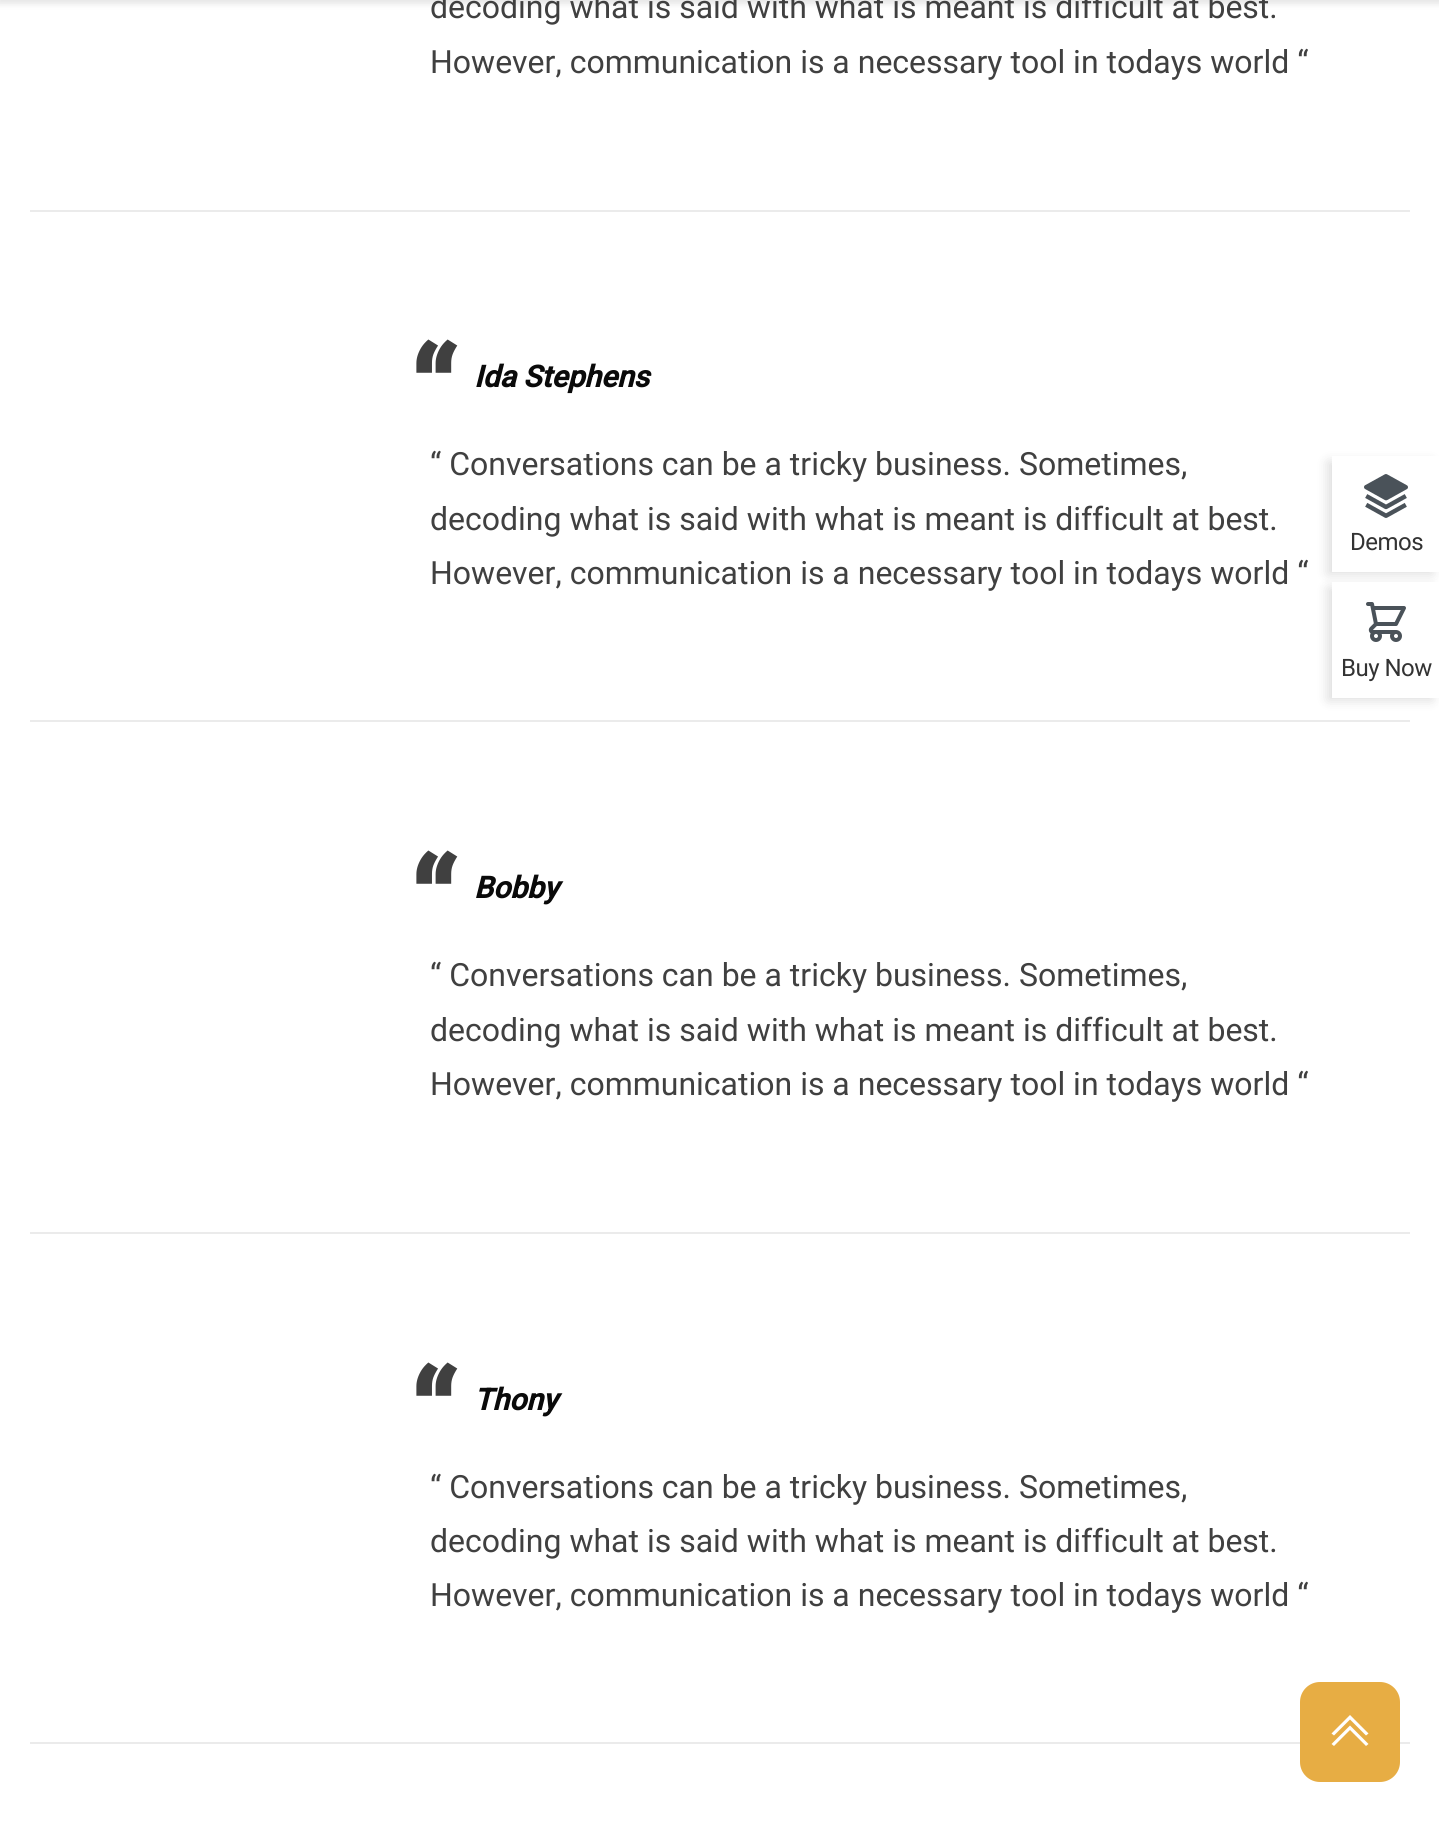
import math
import cairo

surface = cairo.ImageSurface(cairo.FORMAT_RGB24, 1439, 1822)
ctx = cairo.Context(surface)
options = cairo.FontOptions()
options.set_hint_metrics(cairo.HINT_METRICS_OFF)
options.set_hint_style(cairo.HINT_STYLE_NONE)
ctx.set_font_options(options)
ctx.set_miter_limit(4)


def set_color(code):
    ctx.set_source_rgb(*(v / 255 for v in bytes.fromhex(code[-6:])))


def draw_text(x, y, s, family, size, color, bold=False, italic=False):
    ctx.select_font_face(family, cairo.FONT_SLANT_ITALIC if italic else cairo.FONT_SLANT_NORMAL, cairo.FONT_WEIGHT_BOLD if bold else cairo.FONT_WEIGHT_NORMAL)
    ctx.set_font_size(size)
    set_color(color)
    ctx.move_to(x, y)
    ctx.show_text(s)


def draw_spaced(x, y, s, letter, word):
    ctx.move_to(x, y)
    for ch in s:
        ctx.show_text(ch)
        ctx.rel_move_to(letter + word * (ch == ' '), 0)


def fill_rect(x, y, w, h, color):
    set_color(color)
    ctx.rectangle(x, y, w, h)
    ctx.fill()


def rounded_rect(x, y, w, h, r):
    ctx.new_sub_path()
    for i, (u, v) in enumerate([(x + w - r, y + h - r), (x + r, y + h - r), (x + r, y + r), (x + w - r, y + r)]):
        ctx.arc(u, v, r, i * math.pi / 2, (i + 1) * math.pi / 2)
    ctx.close_path()


def draw_shadow(x, y, w, h, r, blur, alpha):
    ctx.push_group_with_content(cairo.CONTENT_ALPHA)
    ctx.set_operator(cairo.OPERATOR_SOURCE)
    for i in range(15, -16, -2):
        e = blur * i / 6
        if min(w, h) + 2 * e > 0:
            ctx.set_source_rgba(0, 0, 0, alpha * math.erfc((i - 1) / 8.5) / 2)
            rounded_rect(x - e, y - e, w + 2 * e, h + 2 * e, max(0, min(r + e + blur * .6, min(w, h) / 2 + e)))
            ctx.fill()
    ctx.mask(ctx.pop_group())


def draw_image(path, x, y, w, h):
    ctx.save()
    ctx.set_source_surface(cairo.ImageSurface.create_from_png(path), x, y)
    ctx.rectangle(x, y, w, h)
    ctx.fill()
    ctx.restore()


set_color("#ffffff")
ctx.paint()
set_color("#000000")
draw_shadow(-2, -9, 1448, 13, 0, 3, 0.1)
fill_rect(30, 210, 1380, 2, "#ebebeb")
draw_text(430, 18, "decoding what is said with what is meant is difficult at best.", "Roboto", 32, "#404040")
draw_text(430, 73, "However, communication is a necessary tool in todays world “", "Roboto", 32, "#404040")
fill_rect(30, 720, 1380, 2, "#ebebeb")
draw_text(410, 435, "“", "Roboto", 120, "#404040", bold=True)
draw_text(474, 387, "Ida Stephens", "Roboto", 30, "#0a0a0a", bold=True, italic=True)
draw_text(430, 475, "“ Conversations can be a tricky business. Sometimes,", "Roboto", 32, "#404040")
draw_text(430, 530, "decoding what is said with what is meant is difficult at best.", "Roboto", 32, "#404040")
draw_text(430, 584, "However, communication is a necessary tool in todays world “", "Roboto", 32, "#404040")
fill_rect(30, 1232, 1380, 2, "#ebebeb")
draw_text(410, 946, "“", "Roboto", 120, "#404040", bold=True)
draw_text(474, 898, "Bobby", "Roboto", 30, "#0a0a0a", bold=True, italic=True)
draw_text(430, 986, "“ Conversations can be a tricky business. Sometimes,", "Roboto", 32, "#404040")
draw_text(430, 1041, "decoding what is said with what is meant is difficult at best.", "Roboto", 32, "#404040")
draw_text(430, 1095, "However, communication is a necessary tool in todays world “", "Roboto", 32, "#404040")
fill_rect(30, 1742, 1380, 2, "#ebebeb")
draw_text(410, 1458, "“", "Roboto", 120, "#404040", bold=True)
draw_text(474, 1410, "Thony", "Roboto", 30, "#0a0a0a", bold=True, italic=True)
draw_text(430, 1498, "“ Conversations can be a tricky business. Sometimes,", "Roboto", 32, "#404040")
draw_text(430, 1552, "decoding what is said with what is meant is difficult at best.", "Roboto", 32, "#404040")
draw_text(430, 1606, "However, communication is a necessary tool in todays world “", "Roboto", 32, "#404040")
ctx.save()
ctx.set_fill_rule(cairo.FILL_RULE_EVEN_ODD)
ctx.new_path()
ctx.move_to(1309, 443)
ctx.line_to(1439, 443)
ctx.line_to(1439, 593)
ctx.line_to(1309, 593)
ctx.close_path()
ctx.move_to(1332, 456)
ctx.line_to(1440, 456)
ctx.line_to(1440, 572)
ctx.line_to(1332, 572)
ctx.close_path()
ctx.clip()
set_color("#000000")
draw_shadow(1328, 462, 104, 112, 0, 6, 0.14)
ctx.restore()
draw_image("assets/img1.png", 1364, 474, 44, 44)
ctx.set_font_size(24)
set_color("#333333")
draw_spaced(1350, 550, "Demos", -0.5, 0)
set_color("#000000")
draw_shadow(1328, 588, 104, 112, 0, 6, 0.14)
fill_rect(1332, 582, 107, 116, "#ffffff")
draw_image("assets/img2.png", 1366, 602, 40, 40)
set_color("#333333")
draw_spaced(1341, 676, "Buy Now", -0.5, 0)
set_color("#e7ad44")
rounded_rect(1300, 1682, 100, 100, 20)
ctx.fill()
set_color("#ffffff")
ctx.new_path()
ctx.move_to(1350, 1715)
ctx.line_to(1331.5, 1733.5)
ctx.line_to(1334, 1735.5)
ctx.line_to(1350, 1719.5)
ctx.line_to(1366, 1735.5)
ctx.line_to(1368.5, 1733.5)
ctx.close_path()
ctx.move_to(1350, 1725.5)
ctx.line_to(1331.5, 1744)
ctx.line_to(1334, 1746)
ctx.line_to(1350, 1730)
ctx.line_to(1366, 1746)
ctx.line_to(1368.5, 1744)
ctx.close_path()
ctx.fill()
surface.write_to_png("output.png")
